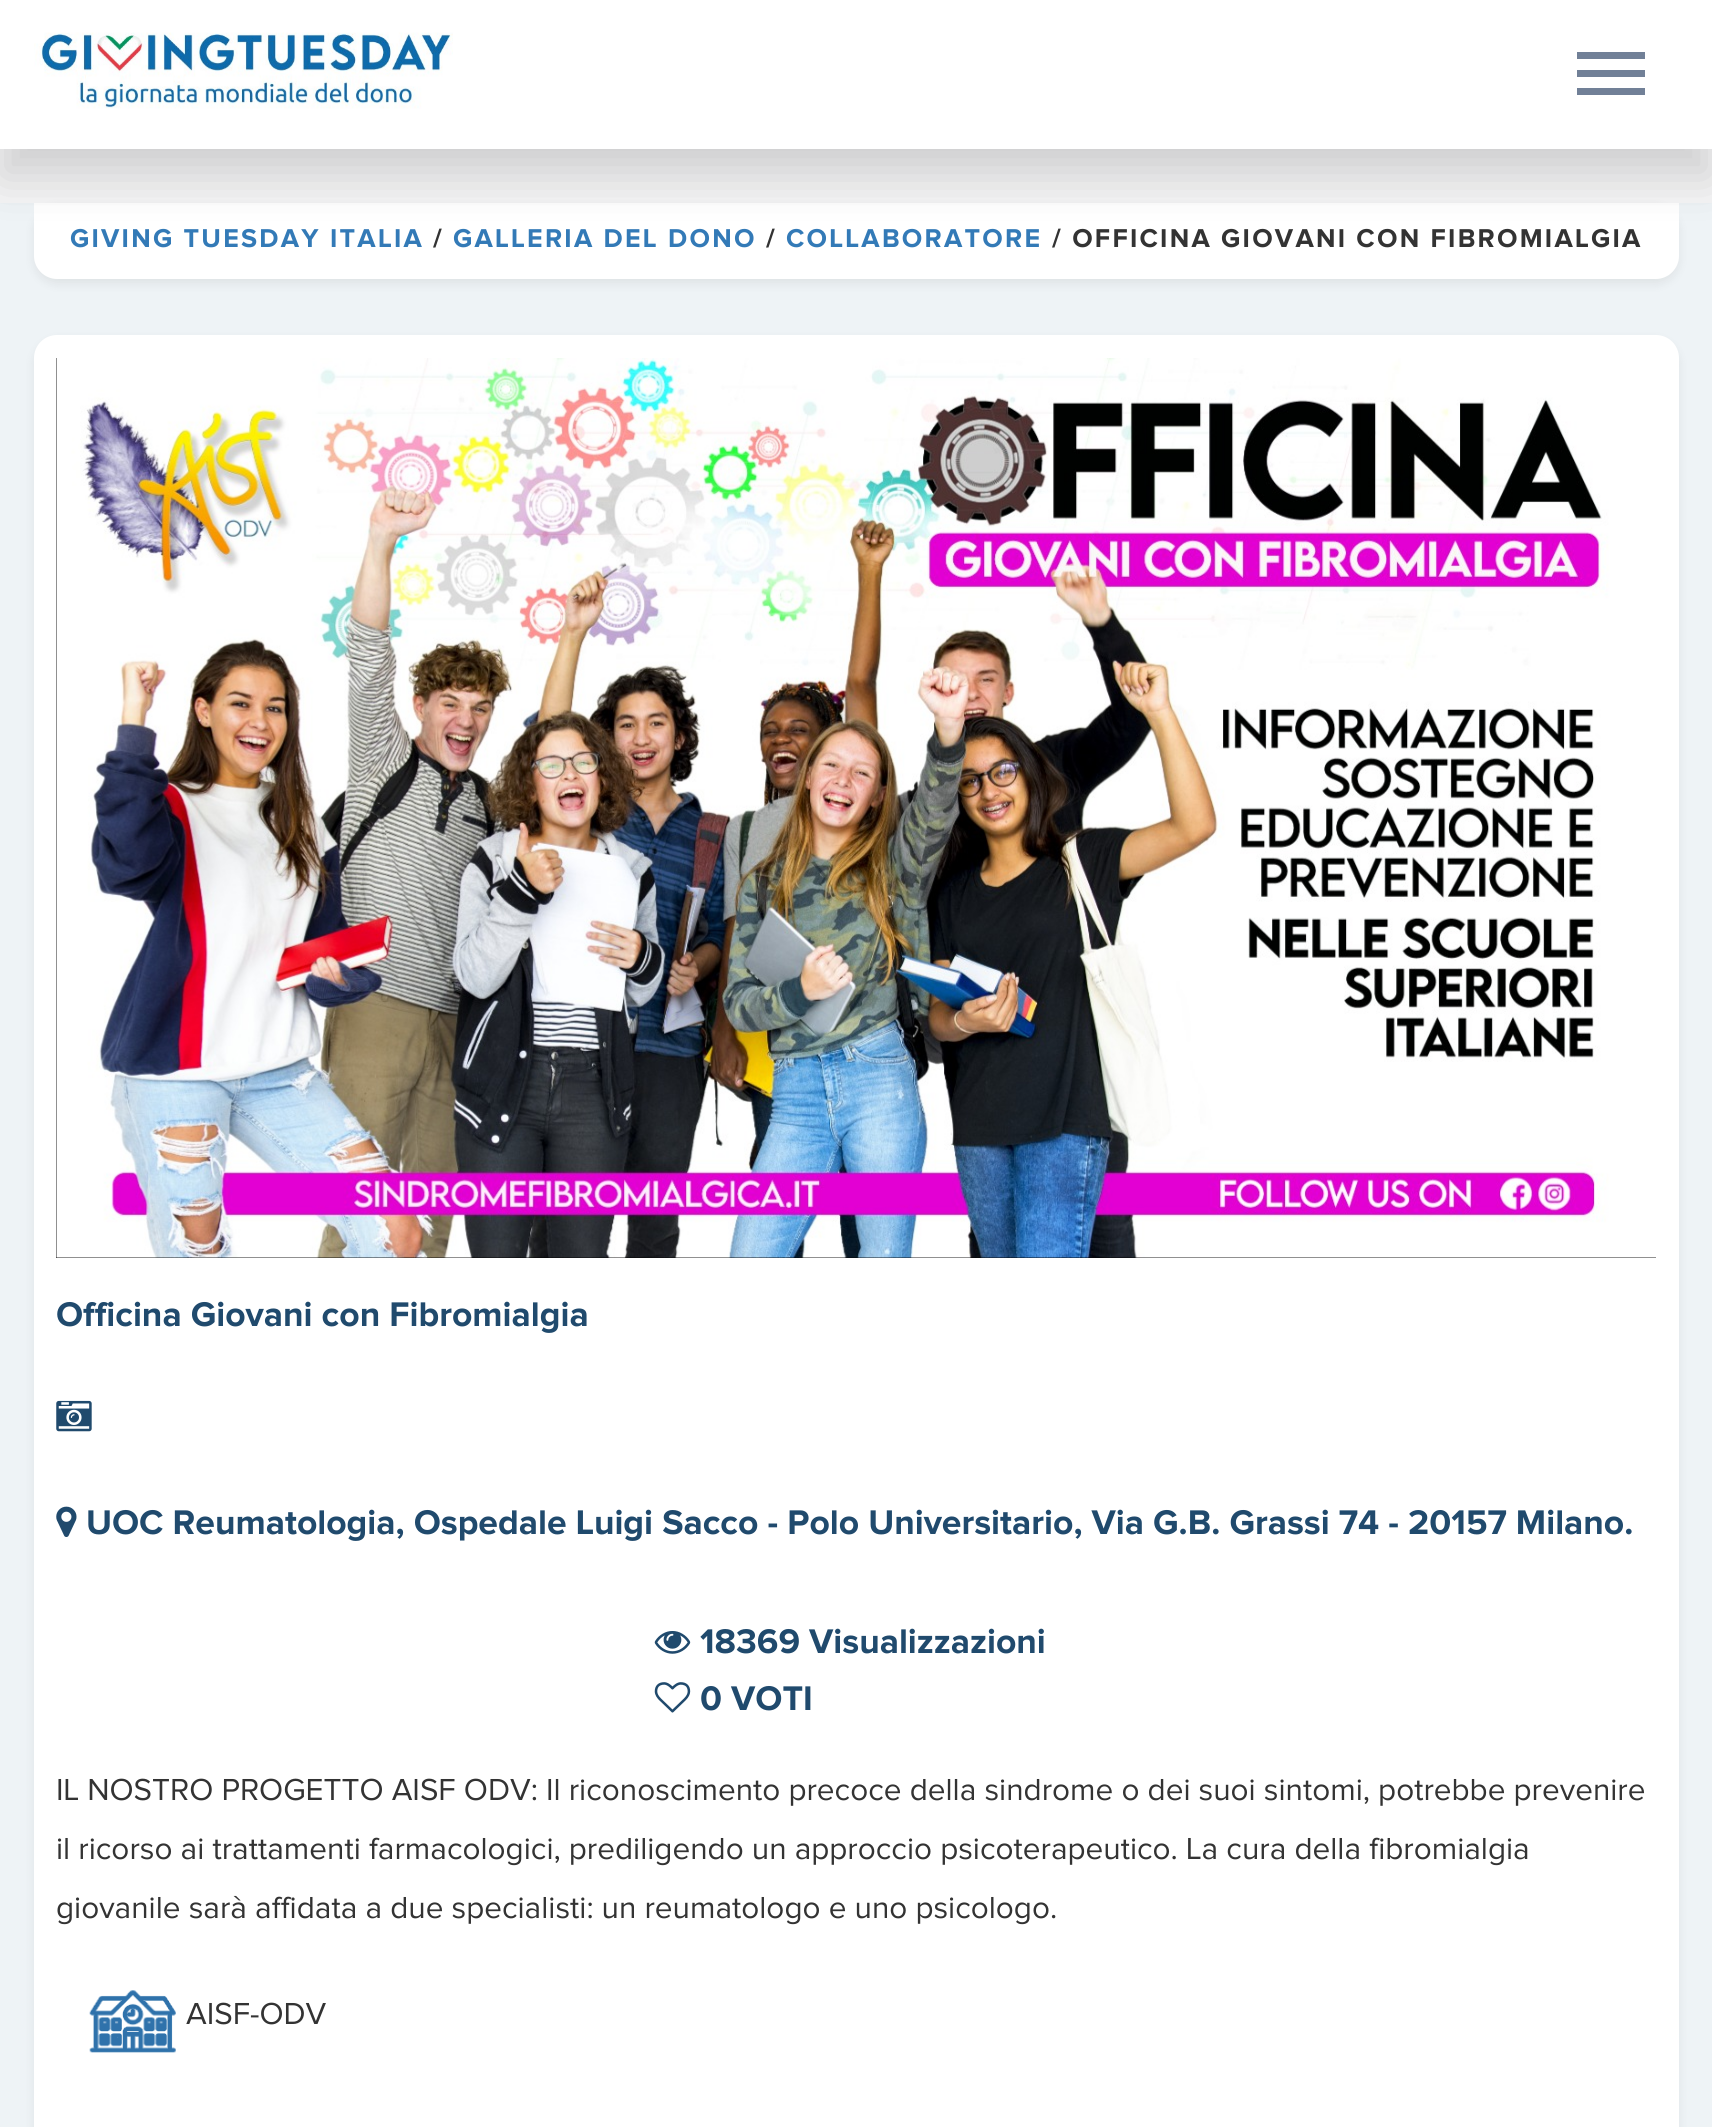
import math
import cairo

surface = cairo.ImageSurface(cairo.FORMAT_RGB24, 1712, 2127)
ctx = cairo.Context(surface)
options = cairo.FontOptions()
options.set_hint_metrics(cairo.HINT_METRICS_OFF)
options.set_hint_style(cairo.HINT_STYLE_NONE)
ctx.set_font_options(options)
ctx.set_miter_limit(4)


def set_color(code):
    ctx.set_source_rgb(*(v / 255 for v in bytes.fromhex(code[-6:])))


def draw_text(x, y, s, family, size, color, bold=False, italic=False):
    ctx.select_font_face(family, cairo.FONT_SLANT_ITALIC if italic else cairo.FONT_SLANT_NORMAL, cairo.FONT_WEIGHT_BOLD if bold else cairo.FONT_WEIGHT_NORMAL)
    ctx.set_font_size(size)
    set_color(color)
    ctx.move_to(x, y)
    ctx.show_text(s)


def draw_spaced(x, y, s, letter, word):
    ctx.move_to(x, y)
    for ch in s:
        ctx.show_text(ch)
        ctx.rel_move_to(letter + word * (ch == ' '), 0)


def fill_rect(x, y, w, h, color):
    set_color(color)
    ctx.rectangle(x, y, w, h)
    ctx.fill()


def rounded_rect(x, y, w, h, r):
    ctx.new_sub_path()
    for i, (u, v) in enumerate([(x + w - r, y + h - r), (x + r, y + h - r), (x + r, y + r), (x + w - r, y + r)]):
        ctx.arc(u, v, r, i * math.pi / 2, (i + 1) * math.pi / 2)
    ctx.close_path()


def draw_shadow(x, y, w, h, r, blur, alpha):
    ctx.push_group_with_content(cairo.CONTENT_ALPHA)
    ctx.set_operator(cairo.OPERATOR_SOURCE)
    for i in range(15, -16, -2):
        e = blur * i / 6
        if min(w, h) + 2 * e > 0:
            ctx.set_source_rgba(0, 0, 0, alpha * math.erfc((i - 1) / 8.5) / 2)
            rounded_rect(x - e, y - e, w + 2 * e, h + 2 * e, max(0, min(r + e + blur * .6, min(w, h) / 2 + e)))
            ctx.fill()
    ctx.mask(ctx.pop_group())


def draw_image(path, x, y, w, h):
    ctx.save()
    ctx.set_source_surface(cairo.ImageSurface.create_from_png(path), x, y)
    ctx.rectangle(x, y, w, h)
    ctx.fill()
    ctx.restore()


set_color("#f6f6f7")
ctx.paint()
fill_rect(0, 203, 1712, 1924, "#eef3f6")
set_color("#000000")
draw_shadow(34, 207, 1645, 77, 23, 5.5, 0.07)
set_color("#ffffff")
ctx.new_path()
ctx.move_to(34, 203)
ctx.line_to(1679, 203)
ctx.line_to(1679, 256)
ctx.curve_to(1679, 268.5, 1668.5, 279, 1656, 279)
ctx.line_to(57, 279)
ctx.curve_to(44.5, 279, 34, 268.5, 34, 256)
ctx.close_path()
ctx.fill()
ctx.save()
ctx.set_fill_rule(cairo.FILL_RULE_EVEN_ODD)
ctx.new_path()
ctx.move_to(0, 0)
ctx.line_to(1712, 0)
ctx.line_to(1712, 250)
ctx.line_to(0, 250)
ctx.close_path()
ctx.move_to(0, 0)
ctx.line_to(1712, 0)
ctx.line_to(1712, 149)
ctx.line_to(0, 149)
ctx.close_path()
ctx.clip()
set_color("#000000")
draw_shadow(0, 29, 1712, 149, 0, 23.5, 0.16)
ctx.restore()
ctx.set_source_rgba(1, 1, 1, 0.99)
ctx.rectangle(0, 0, 1712, 149)
ctx.fill()
draw_image("assets/img1.png", 34, 32, 419, 77)
fill_rect(1577, 52, 68, 7, "#718097")
fill_rect(1577, 70, 68, 7, "#718097")
fill_rect(1577, 88, 68, 7, "#718097")
ctx.select_font_face("Proxima Nova", cairo.FONT_SLANT_NORMAL, cairo.FONT_WEIGHT_BOLD)
ctx.set_font_size(26.75)
set_color("#337ab7")
draw_spaced(70, 247, "GIVING TUESDAY ITALIA", 2.25, 0)
set_color("#333333")
draw_spaced(433, 247, "/", 2.25, 0)
set_color("#337ab7")
draw_spaced(453, 247, "GALLERIA DEL DONO", 2.25, 0)
set_color("#333333")
draw_spaced(766, 247, "/", 2.25, 0)
set_color("#337ab7")
draw_spaced(786, 247, "COLLABORATORE", 2.25, 0)
set_color("#333333")
draw_spaced(1052, 247, "/ OFFICINA GIOVANI CON FIBROMIALGIA", 2.25, 0)
set_color("#000000")
draw_shadow(34, 340, 1645, 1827, 23, 5.5, 0.07)
set_color("#ffffff")
rounded_rect(34, 335, 1645, 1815, 23)
ctx.fill()
fill_rect(56, 358, 1600, 900, "#000000")
draw_image("assets/img2.png", 56, 358, 1600, 900)
draw_text(56, 1326, "Officina Giovani con Fibromialgia", "Proxima Nova", 35.45, "#204a6d", bold=True)
draw_image("assets/img3.png", 56, 1400, 36, 32)
draw_image("assets/img4.png", 56, 1506, 21, 31)
draw_text(86, 1534, "UOC Reumatologia, Ospedale Luigi Sacco - Polo Universitario, Via G.B. Grassi 74 - 20157 Milano.", "Proxima Nova", 35.45, "#204a6d", bold=True)
draw_image("assets/img5.png", 654, 1631, 37, 23)
draw_text(700, 1653, "18369 Visualizzazioni", "Proxima Nova", 35.45, "#204a6d", bold=True)
draw_image("assets/img6.png", 654, 1682, 37, 31)
draw_text(700, 1710, "0 VOTI", "Proxima Nova", 35.45, "#204a6d", bold=True)
draw_text(56, 1800, "IL NOSTRO PROGETTO AISF ODV: Il riconoscimento precoce della sindrome o dei suoi sintomi, potrebbe prevenire", "Proxima Nova", 31.5, "#333333")
draw_text(56, 1859, "il ricorso ai trattamenti farmacologici, prediligendo un approccio psicoterapeutico. La cura della fibromialgia", "Proxima Nova", 31.5, "#333333")
draw_text(56, 1918, "giovanile sarà affidata a due specialisti: un reumatologo e uno psicologo.", "Proxima Nova", 31.5, "#333333")
draw_image("assets/img7.png", 89, 1990, 87, 63)
draw_text(186, 2024, "AISF-ODV", "Proxima Nova", 31.5, "#333333")
surface.write_to_png("output.png")
